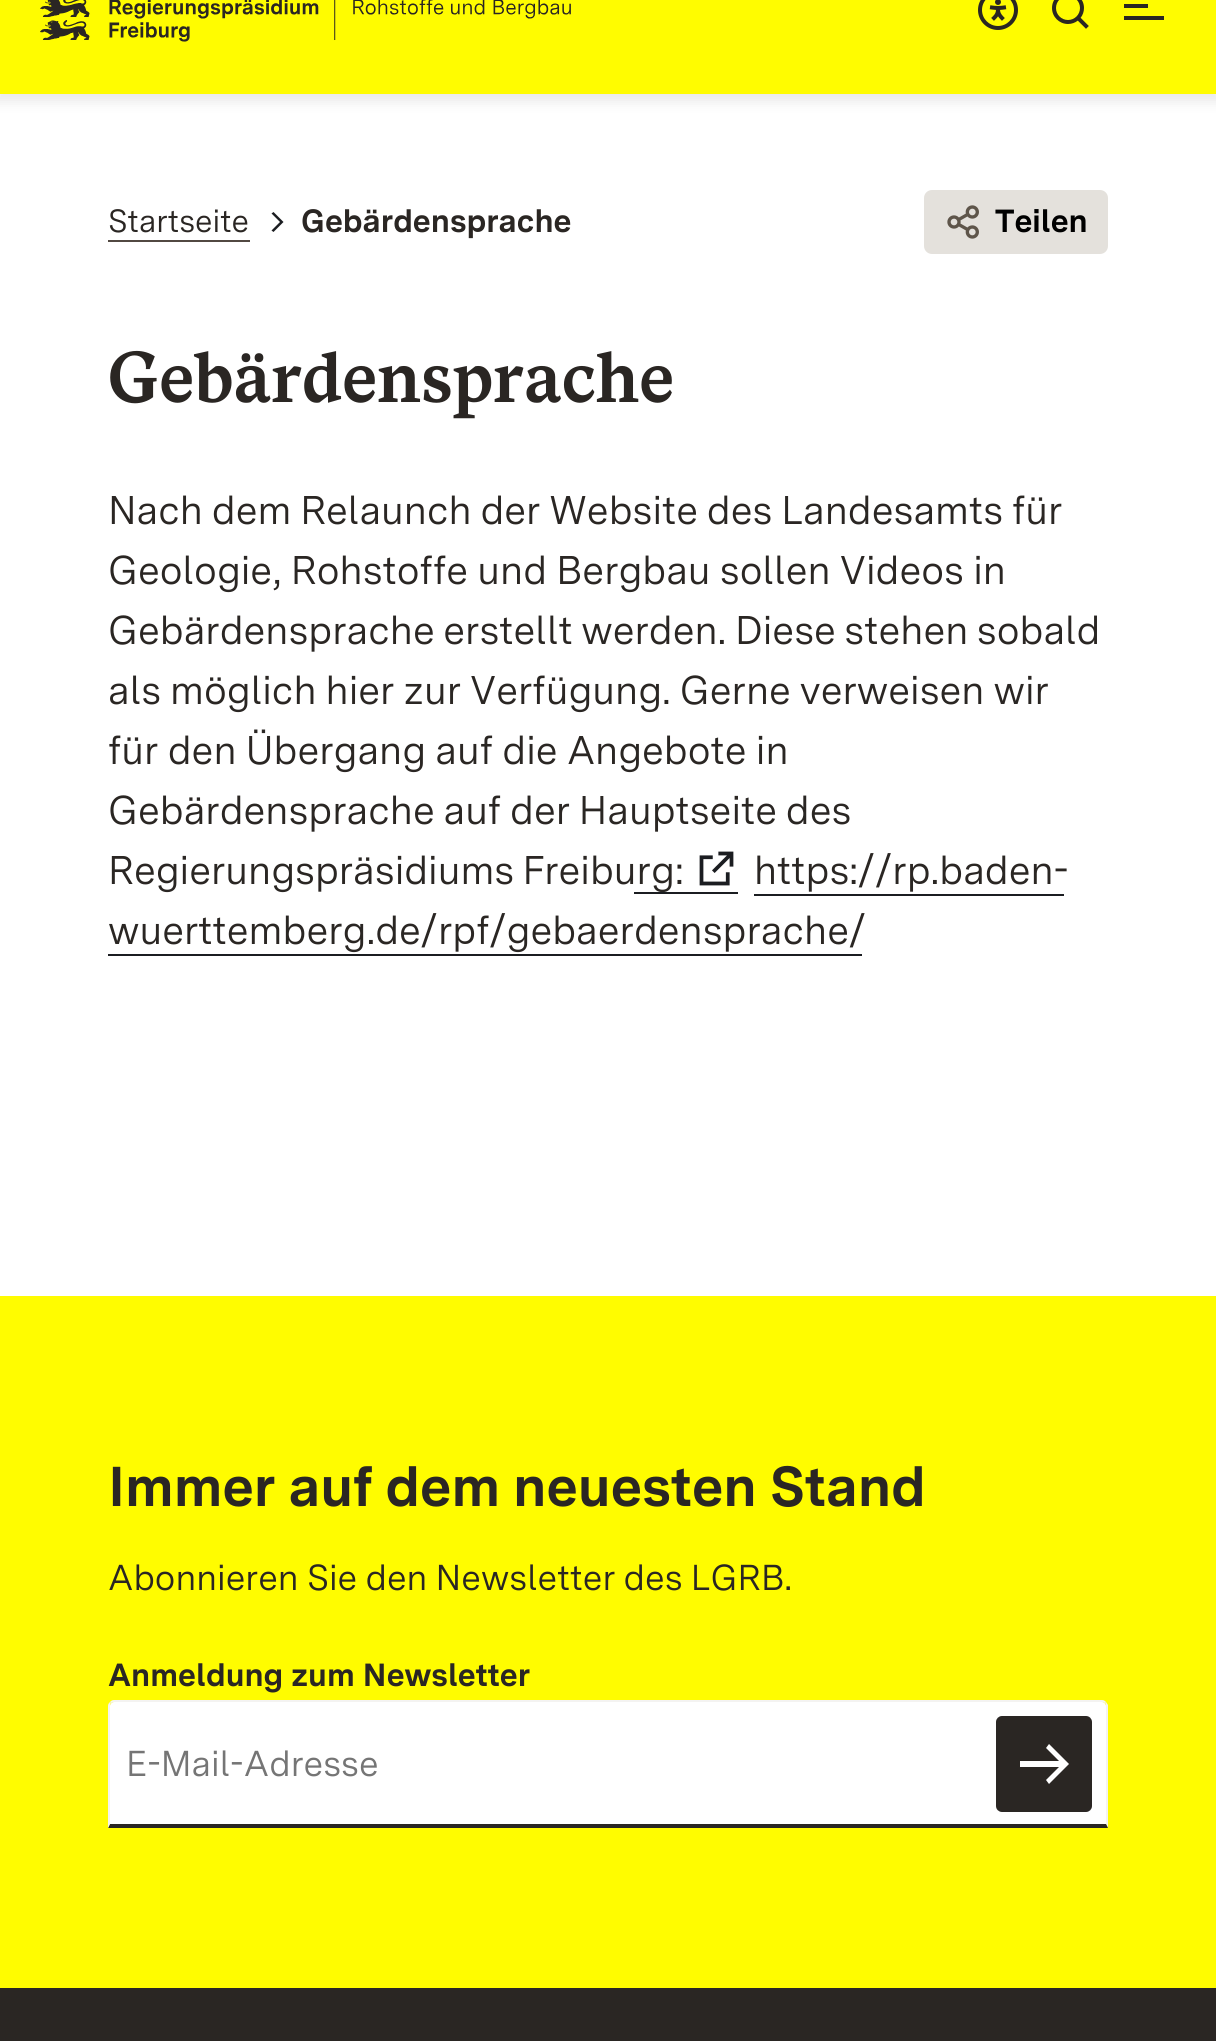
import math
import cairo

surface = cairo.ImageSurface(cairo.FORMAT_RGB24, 1216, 2041)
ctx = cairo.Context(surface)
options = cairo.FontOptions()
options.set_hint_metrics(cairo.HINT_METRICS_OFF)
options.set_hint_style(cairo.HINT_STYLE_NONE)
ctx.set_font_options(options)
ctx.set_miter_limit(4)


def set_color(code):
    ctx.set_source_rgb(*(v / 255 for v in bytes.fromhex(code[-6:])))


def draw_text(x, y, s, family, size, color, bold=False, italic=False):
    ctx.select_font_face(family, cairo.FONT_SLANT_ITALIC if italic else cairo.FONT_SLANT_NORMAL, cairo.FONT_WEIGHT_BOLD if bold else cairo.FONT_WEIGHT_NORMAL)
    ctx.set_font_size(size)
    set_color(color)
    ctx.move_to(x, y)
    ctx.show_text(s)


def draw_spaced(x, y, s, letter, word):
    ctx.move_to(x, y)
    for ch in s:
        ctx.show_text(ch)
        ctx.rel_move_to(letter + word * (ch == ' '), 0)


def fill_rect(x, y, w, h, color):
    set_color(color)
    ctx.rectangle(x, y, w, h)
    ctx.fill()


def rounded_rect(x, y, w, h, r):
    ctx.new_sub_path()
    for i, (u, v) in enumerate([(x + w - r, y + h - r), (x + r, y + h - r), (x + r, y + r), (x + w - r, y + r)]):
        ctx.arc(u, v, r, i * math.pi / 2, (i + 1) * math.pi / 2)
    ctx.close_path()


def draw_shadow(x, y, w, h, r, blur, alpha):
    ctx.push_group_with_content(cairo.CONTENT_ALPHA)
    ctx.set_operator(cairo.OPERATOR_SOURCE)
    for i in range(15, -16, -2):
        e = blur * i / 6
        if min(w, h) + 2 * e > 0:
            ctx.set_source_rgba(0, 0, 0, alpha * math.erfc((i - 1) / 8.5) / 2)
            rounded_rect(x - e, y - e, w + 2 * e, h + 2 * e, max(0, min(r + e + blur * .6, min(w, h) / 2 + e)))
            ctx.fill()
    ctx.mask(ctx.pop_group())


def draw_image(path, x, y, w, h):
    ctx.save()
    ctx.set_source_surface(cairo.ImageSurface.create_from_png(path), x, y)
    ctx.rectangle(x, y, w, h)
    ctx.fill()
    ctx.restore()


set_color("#ffffff")
ctx.paint()
set_color("#2a2623")
draw_shadow(-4, -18, 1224, 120, 0, 6, 0.1)
fill_rect(0, 0, 1216, 94, "#fffc00")
draw_image("assets/img1.png", 40, 0, 531, 42)
draw_image("assets/img2.png", 978, 0, 40, 30)
draw_image("assets/img3.png", 1052, 0, 37, 29)
set_color("#2a2623")
ctx.set_fill_rule(cairo.FILL_RULE_EVEN_ODD)
ctx.new_path()
ctx.move_to(1124, -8)
ctx.line_to(1164, -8)
ctx.line_to(1164, -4)
ctx.line_to(1124, -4)
ctx.close_path()
ctx.move_to(1124, 4)
ctx.line_to(1148, 4)
ctx.line_to(1148, 8)
ctx.line_to(1124, 8)
ctx.close_path()
ctx.move_to(1124, 16)
ctx.line_to(1164, 16)
ctx.line_to(1164, 20)
ctx.line_to(1124, 20)
ctx.close_path()
ctx.fill()
draw_text(108, 232, "Startseite", "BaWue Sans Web", 32, "#2a2623")
fill_rect(108, 240, 142, 2, "#524942")
set_color("#1b1d21")
ctx.new_path()
ctx.move_to(280, 222)
ctx.line_to(271.5, 213.5)
ctx.line_to(273.5, 212)
ctx.line_to(283.5, 222)
ctx.line_to(273.5, 232)
ctx.line_to(271.5, 230.5)
ctx.close_path()
ctx.fill()
draw_text(301, 232, "Gebärdensprache", "BaWue Sans Web", 32, "#2a2623", bold=True)
set_color("#e4e1dc")
rounded_rect(926, 192, 180, 60, 6)
ctx.fill_preserve()
ctx.set_line_width(4)
ctx.stroke()
draw_image("assets/img4.png", 947, 205, 32, 34)
draw_text(995, 232, "Teilen", "BaWue Sans Web", 32, "#000000", bold=True)
draw_text(108, 402, "Gebärdensprache", "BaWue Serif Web", 71.25, "#2a2623", bold=True)
ctx.select_font_face("BaWue Sans Web")
ctx.set_font_size(40)
draw_spaced(108, 524, "Nach dem Relaunch der Website des Landesamts für", 0, -1.5)
draw_spaced(108, 584, "Geologie, Rohstoffe und Bergbau sollen Videos in", 0, -1)
draw_spaced(108, 644, "Gebärdensprache erstellt werden. Diese stehen sobald", 0, -1.75)
draw_spaced(108, 704, "als möglich hier zur Verfügung. Gerne verweisen wir", 0, -1.25)
draw_spaced(108, 764, "für den Übergang auf die Angebote in", 0, -1)
draw_spaced(108, 824, "Gebärdensprache auf der Hauptseite des", 0, -1.5)
draw_spaced(108, 884, "Regierungspräsidiums Freiburg", 0, -2)
fill_rect(634, 892, 104, 2, "#1b1d21")
fill_rect(754, 894, 310, 2, "#1b1d21")
fill_rect(108, 954, 754, 2, "#1b1d21")
draw_image("assets/img5.png", 699, 851, 35, 35)
draw_text(754, 884, "https://rp.baden-", "BaWue Sans Web", 40, "#2a2623")
draw_text(108, 944, "wuerttemberg.de/rpf/gebaerdensprache/", "BaWue Sans Web", 40, "#2a2623")
draw_text(675, 884, ":", "BaWue Sans Web", 40, "#2a2623")
fill_rect(0, 1296, 1216, 692, "#fffc00")
ctx.select_font_face("BaWue Sans Web", cairo.FONT_SLANT_NORMAL, cairo.FONT_WEIGHT_BOLD)
ctx.set_font_size(56)
set_color("#2a2623")
draw_spaced(108, 1506, "Immer auf dem neuesten Stand", 0, -1)
ctx.select_font_face("BaWue Sans Web")
ctx.set_font_size(36)
draw_spaced(108, 1590, "Abonnieren Sie den Newsletter des LGRB.", 0, -1)
draw_text(108, 1686, "Anmeldung zum Newsletter", "BaWue Sans Web", 32, "#2a2623", bold=True)
set_color("#ffffff")
ctx.new_path()
ctx.move_to(114, 1702)
ctx.line_to(1102, 1702)
ctx.curve_to(1104, 1702, 1106, 1704, 1106, 1706)
ctx.line_to(1106, 1824)
ctx.line_to(110, 1824)
ctx.line_to(110, 1706)
ctx.curve_to(110, 1704, 112, 1702, 114, 1702)
ctx.close_path()
ctx.fill()
set_color("#f4f3f1")
ctx.set_fill_rule(cairo.FILL_RULE_WINDING)
ctx.new_path()
ctx.move_to(114, 1700)
ctx.curve_to(112, 1700, 111, 1701, 110, 1702)
ctx.line_to(111, 1703)
ctx.line_to(114, 1702)
ctx.line_to(1102, 1702)
ctx.line_to(1105, 1703)
ctx.line_to(1106, 1702)
ctx.curve_to(1105, 1701, 1104, 1700, 1102, 1700)
ctx.close_path()
ctx.fill()
ctx.new_path()
ctx.move_to(1108, 1828)
ctx.line_to(1108, 1705)
ctx.line_to(1106, 1702)
ctx.line_to(1105, 1703)
ctx.curve_to(1106, 1704, 1106, 1705, 1106, 1706)
ctx.line_to(1106, 1824)
ctx.close_path()
ctx.fill()
set_color("#2a2623")
ctx.new_path()
ctx.move_to(1108, 1828)
ctx.line_to(1106, 1824)
ctx.line_to(110, 1824)
ctx.line_to(108, 1828)
ctx.close_path()
ctx.fill()
set_color("#f4f3f1")
ctx.new_path()
ctx.move_to(108, 1828)
ctx.line_to(110, 1824)
ctx.line_to(110, 1706)
ctx.curve_to(110, 1705, 110, 1704, 111, 1703)
ctx.line_to(110, 1702)
ctx.curve_to(109, 1703, 108, 1704, 108, 1706)
ctx.close_path()
ctx.fill()
draw_text(126, 1776, "E-Mail-Adresse", "BaWue Sans Web", 36, "#757575")
set_color("#2a2623")
rounded_rect(998, 1718, 92, 92, 4)
ctx.fill_preserve()
ctx.stroke()
set_color("#ffffff")
ctx.set_fill_rule(cairo.FILL_RULE_EVEN_ODD)
ctx.new_path()
ctx.move_to(1049, 1744)
ctx.line_to(1069, 1764)
ctx.line_to(1049, 1784)
ctx.line_to(1046, 1780)
ctx.line_to(1059, 1767)
ctx.line_to(1020, 1767)
ctx.line_to(1020, 1761)
ctx.line_to(1059, 1761)
ctx.line_to(1046, 1748)
ctx.close_path()
ctx.fill()
fill_rect(0, 1988, 1216, 53, "#2a2623")
surface.write_to_png("output.png")
